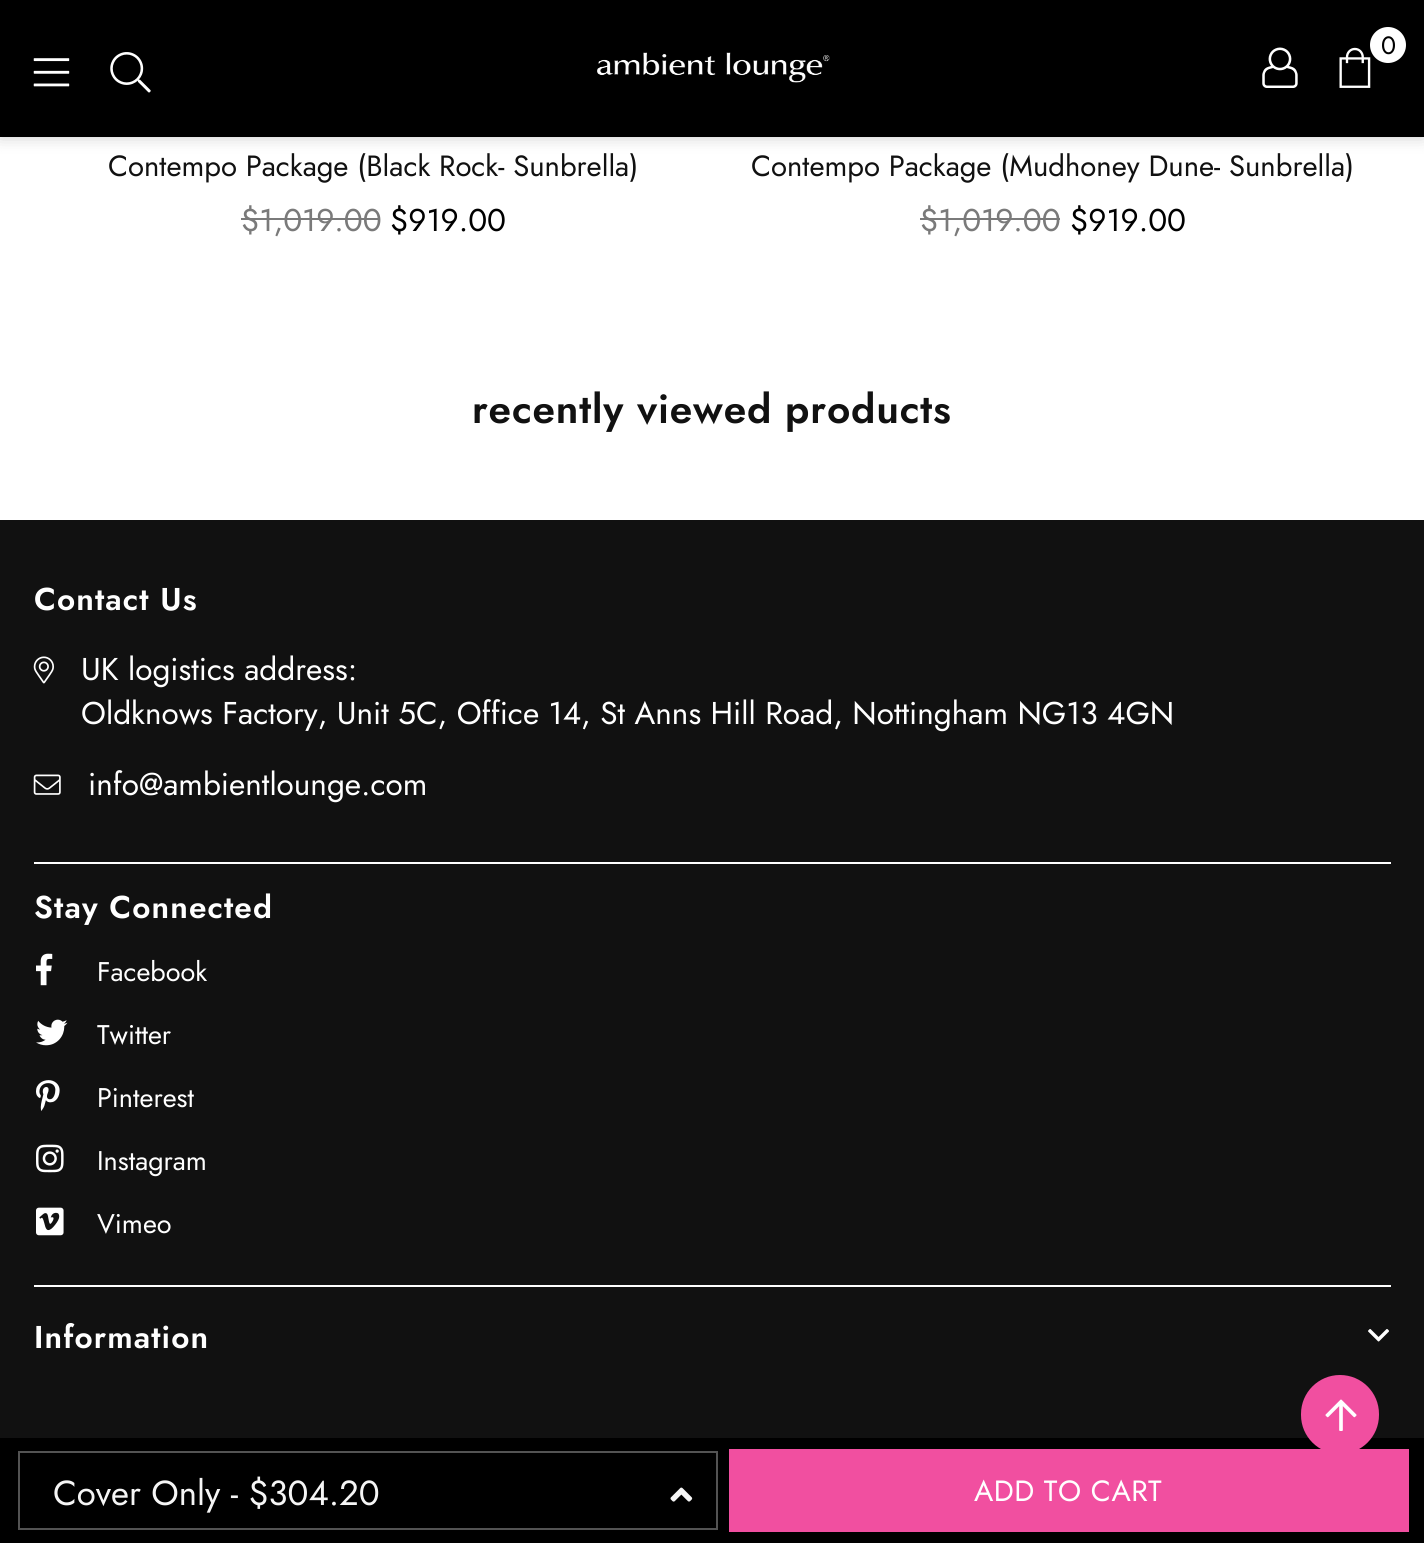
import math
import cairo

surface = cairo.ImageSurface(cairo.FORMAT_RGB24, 1424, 1543)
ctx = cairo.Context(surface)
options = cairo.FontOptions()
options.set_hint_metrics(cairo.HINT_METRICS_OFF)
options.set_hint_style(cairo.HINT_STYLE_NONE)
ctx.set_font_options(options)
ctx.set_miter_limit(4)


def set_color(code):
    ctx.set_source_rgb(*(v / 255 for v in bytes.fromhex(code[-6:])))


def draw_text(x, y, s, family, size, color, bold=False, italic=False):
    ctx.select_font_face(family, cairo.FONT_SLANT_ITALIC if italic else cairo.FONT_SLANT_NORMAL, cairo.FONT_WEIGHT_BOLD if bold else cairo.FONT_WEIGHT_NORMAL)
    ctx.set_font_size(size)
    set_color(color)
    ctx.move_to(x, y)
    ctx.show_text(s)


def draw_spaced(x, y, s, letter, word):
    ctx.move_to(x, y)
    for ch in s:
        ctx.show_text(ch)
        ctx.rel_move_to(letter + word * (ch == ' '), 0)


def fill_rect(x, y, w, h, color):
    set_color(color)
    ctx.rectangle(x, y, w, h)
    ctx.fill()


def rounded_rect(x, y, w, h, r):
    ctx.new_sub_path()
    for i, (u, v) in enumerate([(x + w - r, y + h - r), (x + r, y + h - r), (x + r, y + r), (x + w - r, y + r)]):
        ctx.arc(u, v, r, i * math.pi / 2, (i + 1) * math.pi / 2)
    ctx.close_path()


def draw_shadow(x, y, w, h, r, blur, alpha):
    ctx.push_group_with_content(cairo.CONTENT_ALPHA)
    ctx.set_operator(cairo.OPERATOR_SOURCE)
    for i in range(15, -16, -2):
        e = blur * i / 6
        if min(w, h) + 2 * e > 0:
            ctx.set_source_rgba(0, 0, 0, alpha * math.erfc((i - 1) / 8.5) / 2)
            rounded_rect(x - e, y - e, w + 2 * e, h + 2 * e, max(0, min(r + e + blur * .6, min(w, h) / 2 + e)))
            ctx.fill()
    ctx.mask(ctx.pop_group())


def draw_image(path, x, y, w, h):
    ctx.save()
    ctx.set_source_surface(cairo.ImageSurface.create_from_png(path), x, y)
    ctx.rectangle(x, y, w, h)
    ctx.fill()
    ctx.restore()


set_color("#ffffff")
ctx.paint()
set_color("#000000")
draw_shadow(0, 0, 1424, 137, 0, 8, 0.2)
fill_rect(0, 0, 1424, 137, "#000000")
draw_image("assets/img1.png", 1262, 47, 36, 41)
draw_image("assets/img2.png", 1339, 47, 32, 41)
set_color("#ffffff")
ctx.arc(1388, 45, 18, 0, 2 * math.pi)
ctx.fill()
draw_text(1381, 54, "0", "Jost", 25, "#000000")
draw_image("assets/img3.png", 33, 58, 37, 29)
draw_image("assets/img4.png", 110, 52, 41, 41)
draw_image("assets/img5.png", 597, 52, 233, 31)
draw_text(108, 176, "Contempo Package (Black Rock- Sunbrella)", "Jost", 29.25, "#111111")
draw_text(241, 231, "$1,019.00", "Jost", 31.5, "#7a7a7a")
fill_rect(241, 218, 139, 2, "#7a7a7a")
draw_text(390, 231, "$919.00", "Jost", 31.5, "#000000")
draw_text(751, 176, "Contempo Package (Mudhoney Dune- Sunbrella)", "Jost", 29.25, "#111111")
draw_text(920, 231, "$1,019.00", "Jost", 31.5, "#7a7a7a")
fill_rect(920, 218, 140, 2, "#7a7a7a")
draw_text(1070, 231, "$919.00", "Jost", 31.5, "#000000")
ctx.select_font_face("Jost SemiBold")
ctx.set_font_size(40.5)
set_color("#111111")
draw_spaced(472, 423, "recently viewed products", 0.8, 0)
fill_rect(0, 1438, 1424, 105, "#000000")
ctx.rectangle(19, 1452, 698, 77)
set_color("#535353")
ctx.stroke()
draw_text(53, 1505, "Cover Only - $304.20", "Jost", 34.75, "#f5f5f5")
draw_image("assets/img6.png", 670, 1487, 23, 15)
fill_rect(729, 1449, 680, 83, "#f14fa0")
ctx.set_font_size(29.25)
set_color("#ffffff")
draw_spaced(974, 1501, "ADD TO CART", 0.5, 0)
fill_rect(0, 520, 1424, 918, "#111111")
ctx.select_font_face("Jost SemiBold")
ctx.set_font_size(31.5)
set_color("#ffffff")
draw_spaced(34, 610, "Contact Us", 1.1, 0)
draw_image("assets/img7.png", 33, 656, 21, 28)
draw_text(81, 680, "UK logistics address:", "Jost", 31.5, "#ffffff")
draw_text(81, 724, "Oldknows Factory, Unit 5C, Office 14, St Anns Hill Road, Nottingham NG13 4GN", "Jost", 31.5, "#ffffff")
draw_image("assets/img8.png", 33, 774, 28, 21)
draw_text(88, 795, "info@ambientlounge.com", "Jost", 31.5, "#ffffff")
fill_rect(34, 862, 1357, 2, "#ffffff")
ctx.select_font_face("Jost SemiBold")
draw_spaced(34, 918, "Stay Connected", 1.1, 0)
draw_image("assets/img9.png", 36, 953, 17, 33)
draw_text(97, 981, "Facebook", "Jost", 27, "#ffffff")
draw_image("assets/img10.png", 36, 1019, 32, 27)
draw_text(97, 1044, "Twitter", "Jost", 27, "#ffffff")
draw_image("assets/img11.png", 36, 1080, 24, 31)
draw_text(97, 1107, "Pinterest", "Jost", 27, "#ffffff")
draw_image("assets/img12.png", 36, 1144, 28, 29)
draw_text(97, 1170, "Instagram", "Jost", 27, "#ffffff")
draw_image("assets/img13.png", 36, 1207, 28, 29)
draw_text(97, 1233, "Vimeo", "Jost", 27, "#ffffff")
fill_rect(34, 1285, 1357, 2, "#ffffff")
ctx.select_font_face("Jost SemiBold")
ctx.set_font_size(31.5)
draw_spaced(34, 1348, "Information", 1.1, 0)
draw_image("assets/img14.png", 1368, 1329, 21, 13)
set_color("#f14fa0")
rounded_rect(1301, 1375, 78, 79, 39)
ctx.fill()
draw_image("assets/img15.png", 1325, 1399, 32, 32)
surface.write_to_png("output.png")
